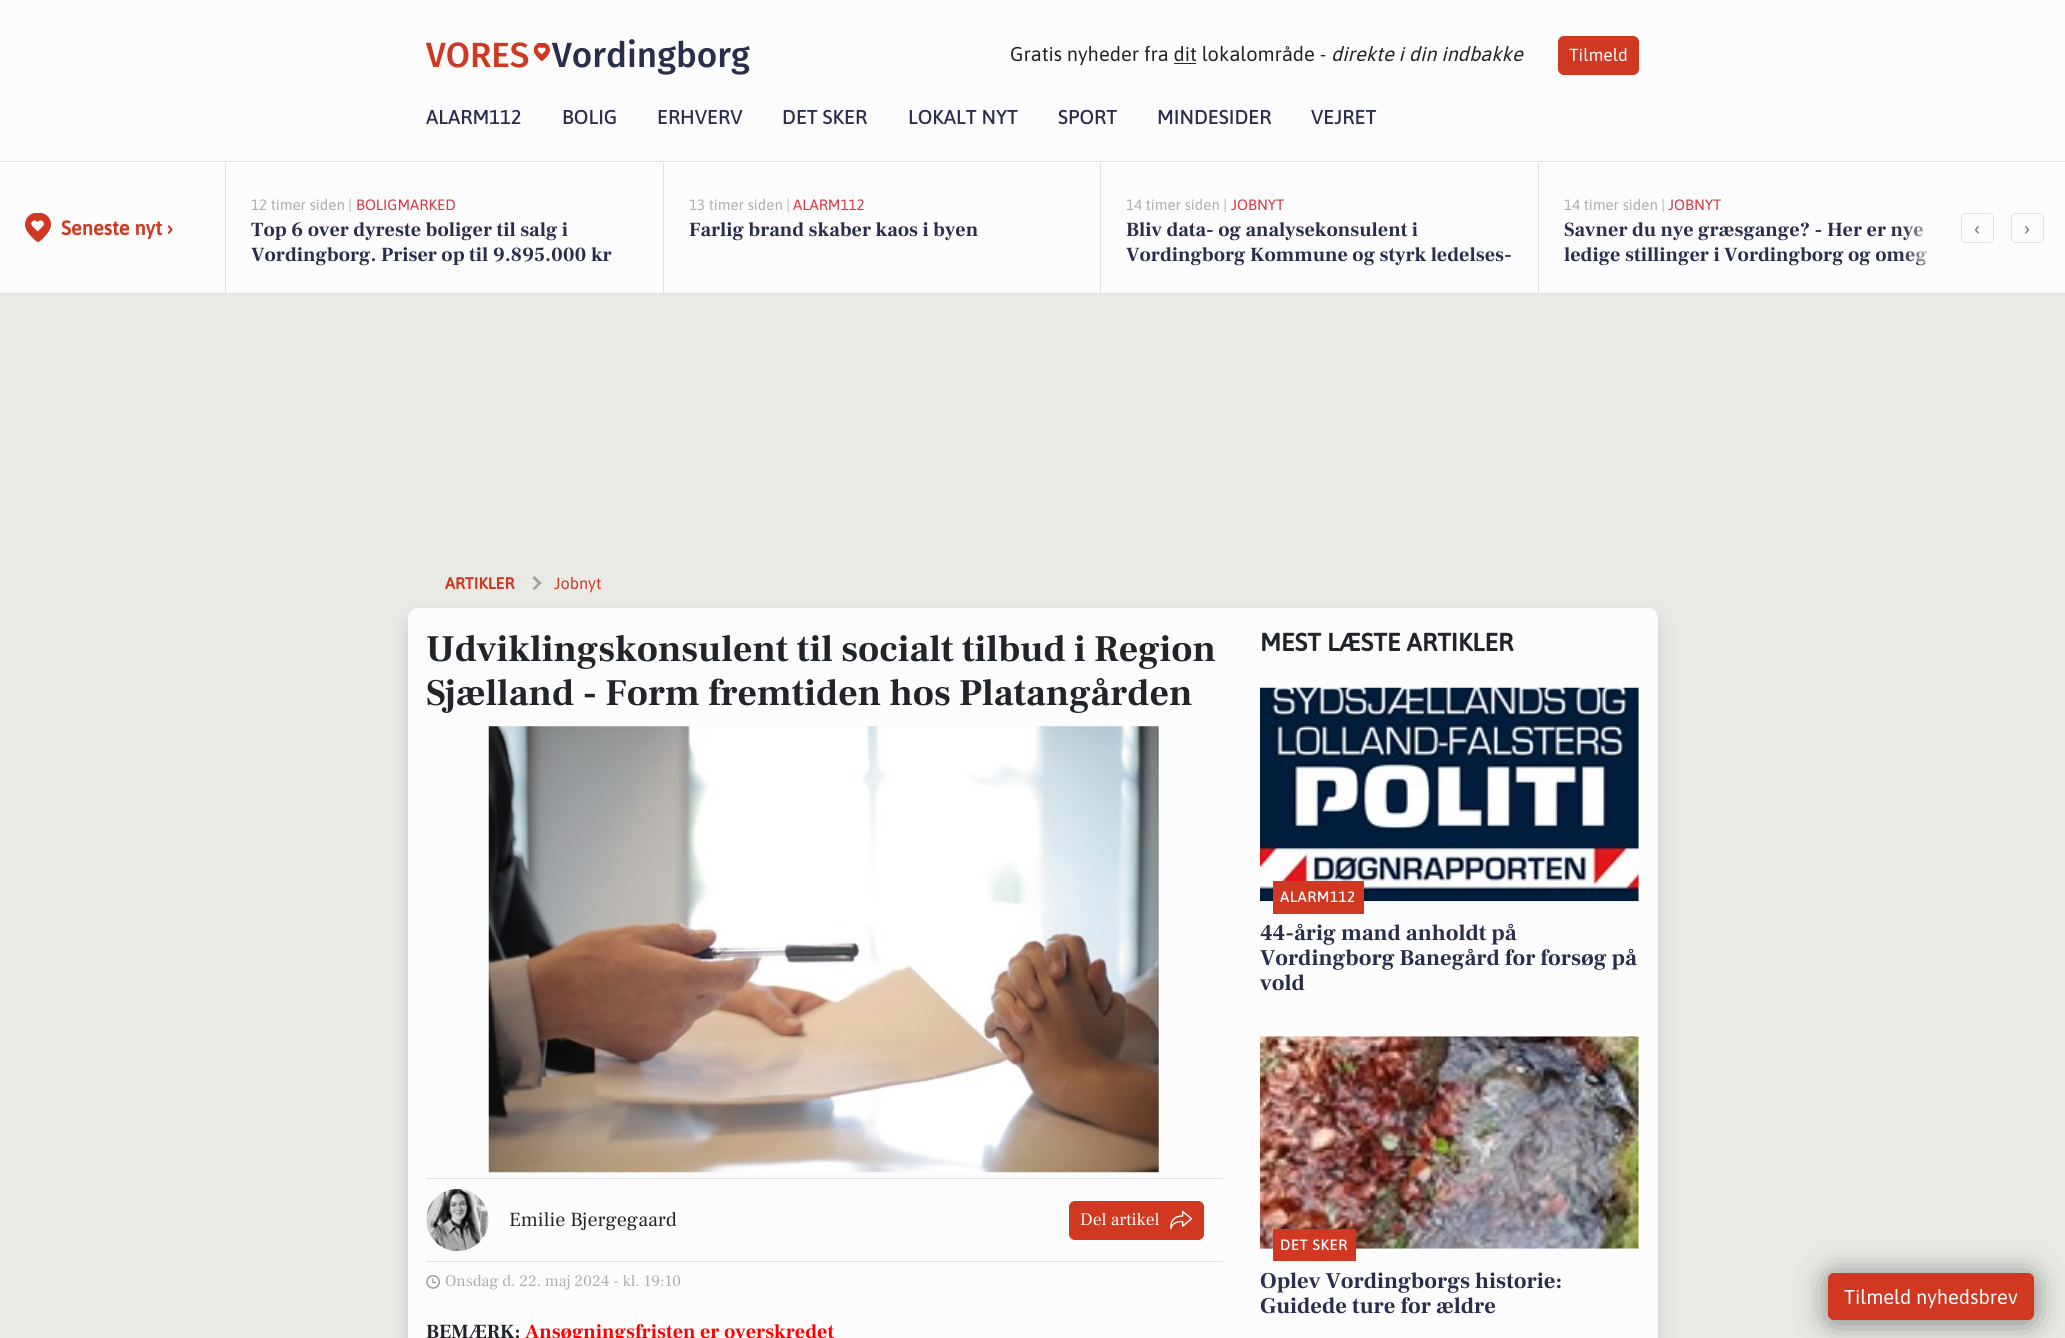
import math
import cairo

surface = cairo.ImageSurface(cairo.FORMAT_RGB24, 2065, 1338)
ctx = cairo.Context(surface)
options = cairo.FontOptions()
options.set_hint_metrics(cairo.HINT_METRICS_OFF)
options.set_hint_style(cairo.HINT_STYLE_NONE)
ctx.set_font_options(options)
ctx.set_miter_limit(4)


def set_color(code):
    ctx.set_source_rgb(*(v / 255 for v in bytes.fromhex(code[-6:])))


def draw_text(x, y, s, family, size, color, bold=False, italic=False):
    ctx.select_font_face(family, cairo.FONT_SLANT_ITALIC if italic else cairo.FONT_SLANT_NORMAL, cairo.FONT_WEIGHT_BOLD if bold else cairo.FONT_WEIGHT_NORMAL)
    ctx.set_font_size(size)
    set_color(color)
    ctx.move_to(x, y)
    ctx.show_text(s)


def draw_spaced(x, y, s, letter, word):
    ctx.move_to(x, y)
    for ch in s:
        ctx.show_text(ch)
        ctx.rel_move_to(letter + word * (ch == ' '), 0)


def fill_rect(x, y, w, h, color):
    set_color(color)
    ctx.rectangle(x, y, w, h)
    ctx.fill()


def rounded_rect(x, y, w, h, r):
    ctx.new_sub_path()
    for i, (u, v) in enumerate([(x + w - r, y + h - r), (x + r, y + h - r), (x + r, y + r), (x + w - r, y + r)]):
        ctx.arc(u, v, r, i * math.pi / 2, (i + 1) * math.pi / 2)
    ctx.close_path()


def draw_shadow(x, y, w, h, r, blur, alpha):
    ctx.push_group_with_content(cairo.CONTENT_ALPHA)
    ctx.set_operator(cairo.OPERATOR_SOURCE)
    for i in range(15, -16, -2):
        e = blur * i / 6
        if min(w, h) + 2 * e > 0:
            ctx.set_source_rgba(0, 0, 0, alpha * math.erfc((i - 1) / 8.5) / 2)
            rounded_rect(x - e, y - e, w + 2 * e, h + 2 * e, max(0, min(r + e + blur * .6, min(w, h) / 2 + e)))
            ctx.fill()
    ctx.mask(ctx.pop_group())


def draw_image(path, x, y, w, h):
    ctx.save()
    ctx.set_source_surface(cairo.ImageSurface.create_from_png(path), x, y)
    ctx.rectangle(x, y, w, h)
    ctx.fill()
    ctx.restore()


set_color("#e9eae5")
ctx.paint()
fill_rect(0, 0, 2065, 293, "#fcfcfc")
fill_rect(0, 161, 2065, 1, "#dee2e6")
draw_text(426, 67, "VORES", "Fira Sans Medium", 35, "#d03822")
draw_image("assets/img1.png", 534, 43, 16, 18)
draw_text(552, 67, "Vordingborg", "Fira Sans Medium", 35, "#2b2d4c")
draw_text(1010, 61, "Gratis nyheder fra dit lokalområde -", "Asap", 20, "#212529")
fill_rect(1174, 63, 22, 1, "#212529")
draw_text(1331, 61, "direkte i din indbakke", "Asap", 20, "#212529", italic=True)
set_color("#d03822")
rounded_rect(1558.5, 36.5, 80, 38, 5.5)
ctx.fill_preserve()
ctx.set_line_width(1)
ctx.stroke()
draw_text(1569, 61, "Tilmeld", "Asap", 17.5, "#fcfcfc")
draw_text(426, 124, "ALARM112", "Asap Medium", 20, "#2b2d4c")
draw_text(562, 124, "BOLIG", "Asap Medium", 20, "#2b2d4c")
draw_text(657, 124, "ERHVERV", "Asap Medium", 20, "#2b2d4c")
draw_text(782, 124, "DET SKER", "Asap Medium", 20, "#2b2d4c")
draw_text(908, 124, "LOKALT NYT", "Asap Medium", 20, "#2b2d4c")
draw_text(1058, 124, "SPORT", "Asap Medium", 20, "#2b2d4c")
draw_text(1157, 124, "MINDESIDER", "Asap Medium", 20, "#2b2d4c")
draw_text(1311, 124, "VEJRET", "Asap Medium", 20, "#2b2d4c")
fill_rect(0, 293, 2065, 1, "#dee2e6")
draw_image("assets/img2.png", 25, 213, 26, 29)
draw_text(61, 235, "Seneste nyt ›", "Asap", 20, "#d03822", bold=True)
fill_rect(225, 163, 1, 130, "#dee2e6")
draw_text(251, 210, "12 timer siden |", "Asap", 15, "#aeaeae")
draw_text(356, 210, "BOLIGMARKED", "Asap", 15, "#dc3545")
draw_text(251, 236, "Top 6 over dyreste boliger til salg i", "Frank Ruhl Libre", 20, "#2b2d4c", bold=True)
draw_text(251, 261, "Vordingborg. Priser op til 9.895.000 kr", "Frank Ruhl Libre", 20, "#2b2d4c", bold=True)
fill_rect(663, 163, 1, 130, "#dee2e6")
draw_text(689, 210, "13 timer siden |", "Asap", 15, "#aeaeae")
draw_text(793, 210, "ALARM112", "Asap", 15, "#dc3545")
draw_text(689, 236, "Farlig brand skaber kaos i byen", "Frank Ruhl Libre", 20, "#2b2d4c", bold=True)
fill_rect(1100, 163, 1, 130, "#dee2e6")
draw_text(1126, 210, "14 timer siden |", "Asap", 15, "#aeaeae")
draw_text(1231, 210, "JOBNYT", "Asap", 15, "#dc3545")
draw_text(1126, 236, "Bliv data- og analysekonsulent i", "Frank Ruhl Libre", 20, "#2b2d4c", bold=True)
draw_text(1126, 261, "Vordingborg Kommune og styrk ledelses-", "Frank Ruhl Libre", 20, "#2b2d4c", bold=True)
fill_rect(1538, 163, 1, 130, "#dee2e6")
draw_text(1564, 210, "14 timer siden |", "Asap", 15, "#aeaeae")
draw_text(1668, 210, "JOBNYT", "Asap", 15, "#dc3545")
draw_text(1564, 236, "Savner du nye græsgange? - Her er nye", "Frank Ruhl Libre", 20, "#2b2d4c", bold=True)
draw_text(1564, 261, "ledige stillinger i Vordingborg og omeg", "Frank Ruhl Libre", 20, "#2b2d4c", bold=True)
gradient = cairo.LinearGradient(1903, 231, 1940, 231)
gradient.add_color_stop_rgba(0, 0.988, 0.988, 0.988, 0)
gradient.add_color_stop_rgba(1, 0.988, 0.988, 0.988, 1)
ctx.set_source(gradient)
ctx.rectangle(1904, 226, 23, 37)
ctx.fill()
rounded_rect(1961.5, 213.5, 32, 29, 4.5)
set_color("#dee2e6")
ctx.stroke()
draw_text(1974, 235, "‹", "Asap", 20, "#6c757d")
rounded_rect(2011.5, 213.5, 32, 29, 4.5)
set_color("#dee2e6")
ctx.stroke()
draw_text(2024, 235, "›", "Asap", 20, "#6c757d")
set_color("#2b2d4c")
draw_shadow(408, 618, 1250, 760, 10, 10, 0.15)
draw_text(445, 589, "ARTIKLER", "Asap", 16.25, "#d03822", bold=True)
set_color("#a0a0a0")
ctx.new_path()
ctx.move_to(534.5, 576)
ctx.line_to(541.5, 583)
ctx.line_to(539.5, 585)
ctx.line_to(532.5, 578)
ctx.close_path()
ctx.fill()
ctx.new_path()
ctx.move_to(539.5, 581.5)
ctx.line_to(541.5, 583)
ctx.line_to(534.5, 590)
ctx.line_to(532.5, 588.5)
ctx.close_path()
ctx.fill()
draw_text(554, 589, "Jobnyt", "Asap", 16.25, "#d03822")
set_color("#fcfcfc")
rounded_rect(408, 608, 1250, 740, 10)
ctx.fill()
draw_text(426, 661, "Udviklingskonsulent til socialt tilbud i Region", "Frank Ruhl Libre", 37.5, "#212529", bold=True)
draw_text(426, 705, "Sjælland - Form fremtiden hos Platangården", "Frank Ruhl Libre", 37.5, "#212529", bold=True)
draw_image("assets/img3.png", 487, 726, 674, 447)
fill_rect(426, 1178, 797, 1, "#dee2e6")
fill_rect(426, 1261, 797, 1, "#dee2e6")
draw_image("assets/img4.png", 426, 1188, 63, 64)
draw_text(509, 1226, "Emilie Bjergegaard", "Frank Ruhl Libre", 20, "#212529")
set_color("#d03822")
rounded_rect(1069.5, 1201.5, 134, 38, 5.5)
ctx.fill_preserve()
ctx.stroke()
draw_text(1080, 1225, "Del artikel", "Frank Ruhl Libre", 17.5, "#fcfcfc")
draw_image("assets/img5.png", 1170, 1210, 23, 20)
draw_image("assets/img6.png", 426, 1275, 14, 14)
draw_text(445, 1286, "Onsdag d. 22. maj 2024 - kl. 19:10", "Frank Ruhl Libre", 16, "#aeaeae")
draw_text(426, 1338, "BEMÆRK:", "Frank Ruhl Libre", 20, "#212529", bold=True)
draw_text(525, 1338, "Ansøgningsfristen er overskredet", "Frank Ruhl Libre", 20, "#ff0000", bold=True)
draw_text(1260, 651, "MEST LÆSTE ARTIKLER", "Asap", 25, "#212529", bold=True)
draw_image("assets/img7.png", 1260, 687, 379, 215)
fill_rect(1273, 881, 91, 33, "#d03822")
ctx.select_font_face("Asap Medium")
ctx.set_font_size(15)
set_color("#fcfcfc")
draw_spaced(1280, 902, "ALARM112", 0.5, 0)
draw_text(1260, 940, "44-årig mand anholdt på", "Frank Ruhl Libre", 22.5, "#2b2d4c", bold=True)
draw_text(1260, 965, "Vordingborg Banegård for forsøg på", "Frank Ruhl Libre", 22.5, "#2b2d4c", bold=True)
draw_text(1260, 990, "vold", "Frank Ruhl Libre", 22.5, "#2b2d4c", bold=True)
draw_image("assets/img8.png", 1260, 1036, 379, 213)
fill_rect(1273, 1229, 83, 32, "#d03822")
ctx.select_font_face("Asap Medium")
ctx.set_font_size(15)
set_color("#fcfcfc")
draw_spaced(1280, 1250, "DET SKER", 0.5, 0)
draw_text(1260, 1288, "Oplev Vordingborgs historie:", "Frank Ruhl Libre", 22.5, "#2b2d4c", bold=True)
draw_text(1260, 1313, "Guidede ture for ældre", "Frank Ruhl Libre", 22.5, "#2b2d4c", bold=True)
set_color("#000000")
draw_shadow(1828, 1275, 206, 48, 6, 15, 0.45)
set_color("#d03822")
rounded_rect(1828.5, 1273.5, 205, 46, 5.5)
ctx.fill_preserve()
ctx.stroke()
draw_text(1844, 1304, "Tilmeld nyhedsbrev", "Asap", 20, "#fcfcfc")
surface.write_to_png("output.png")
